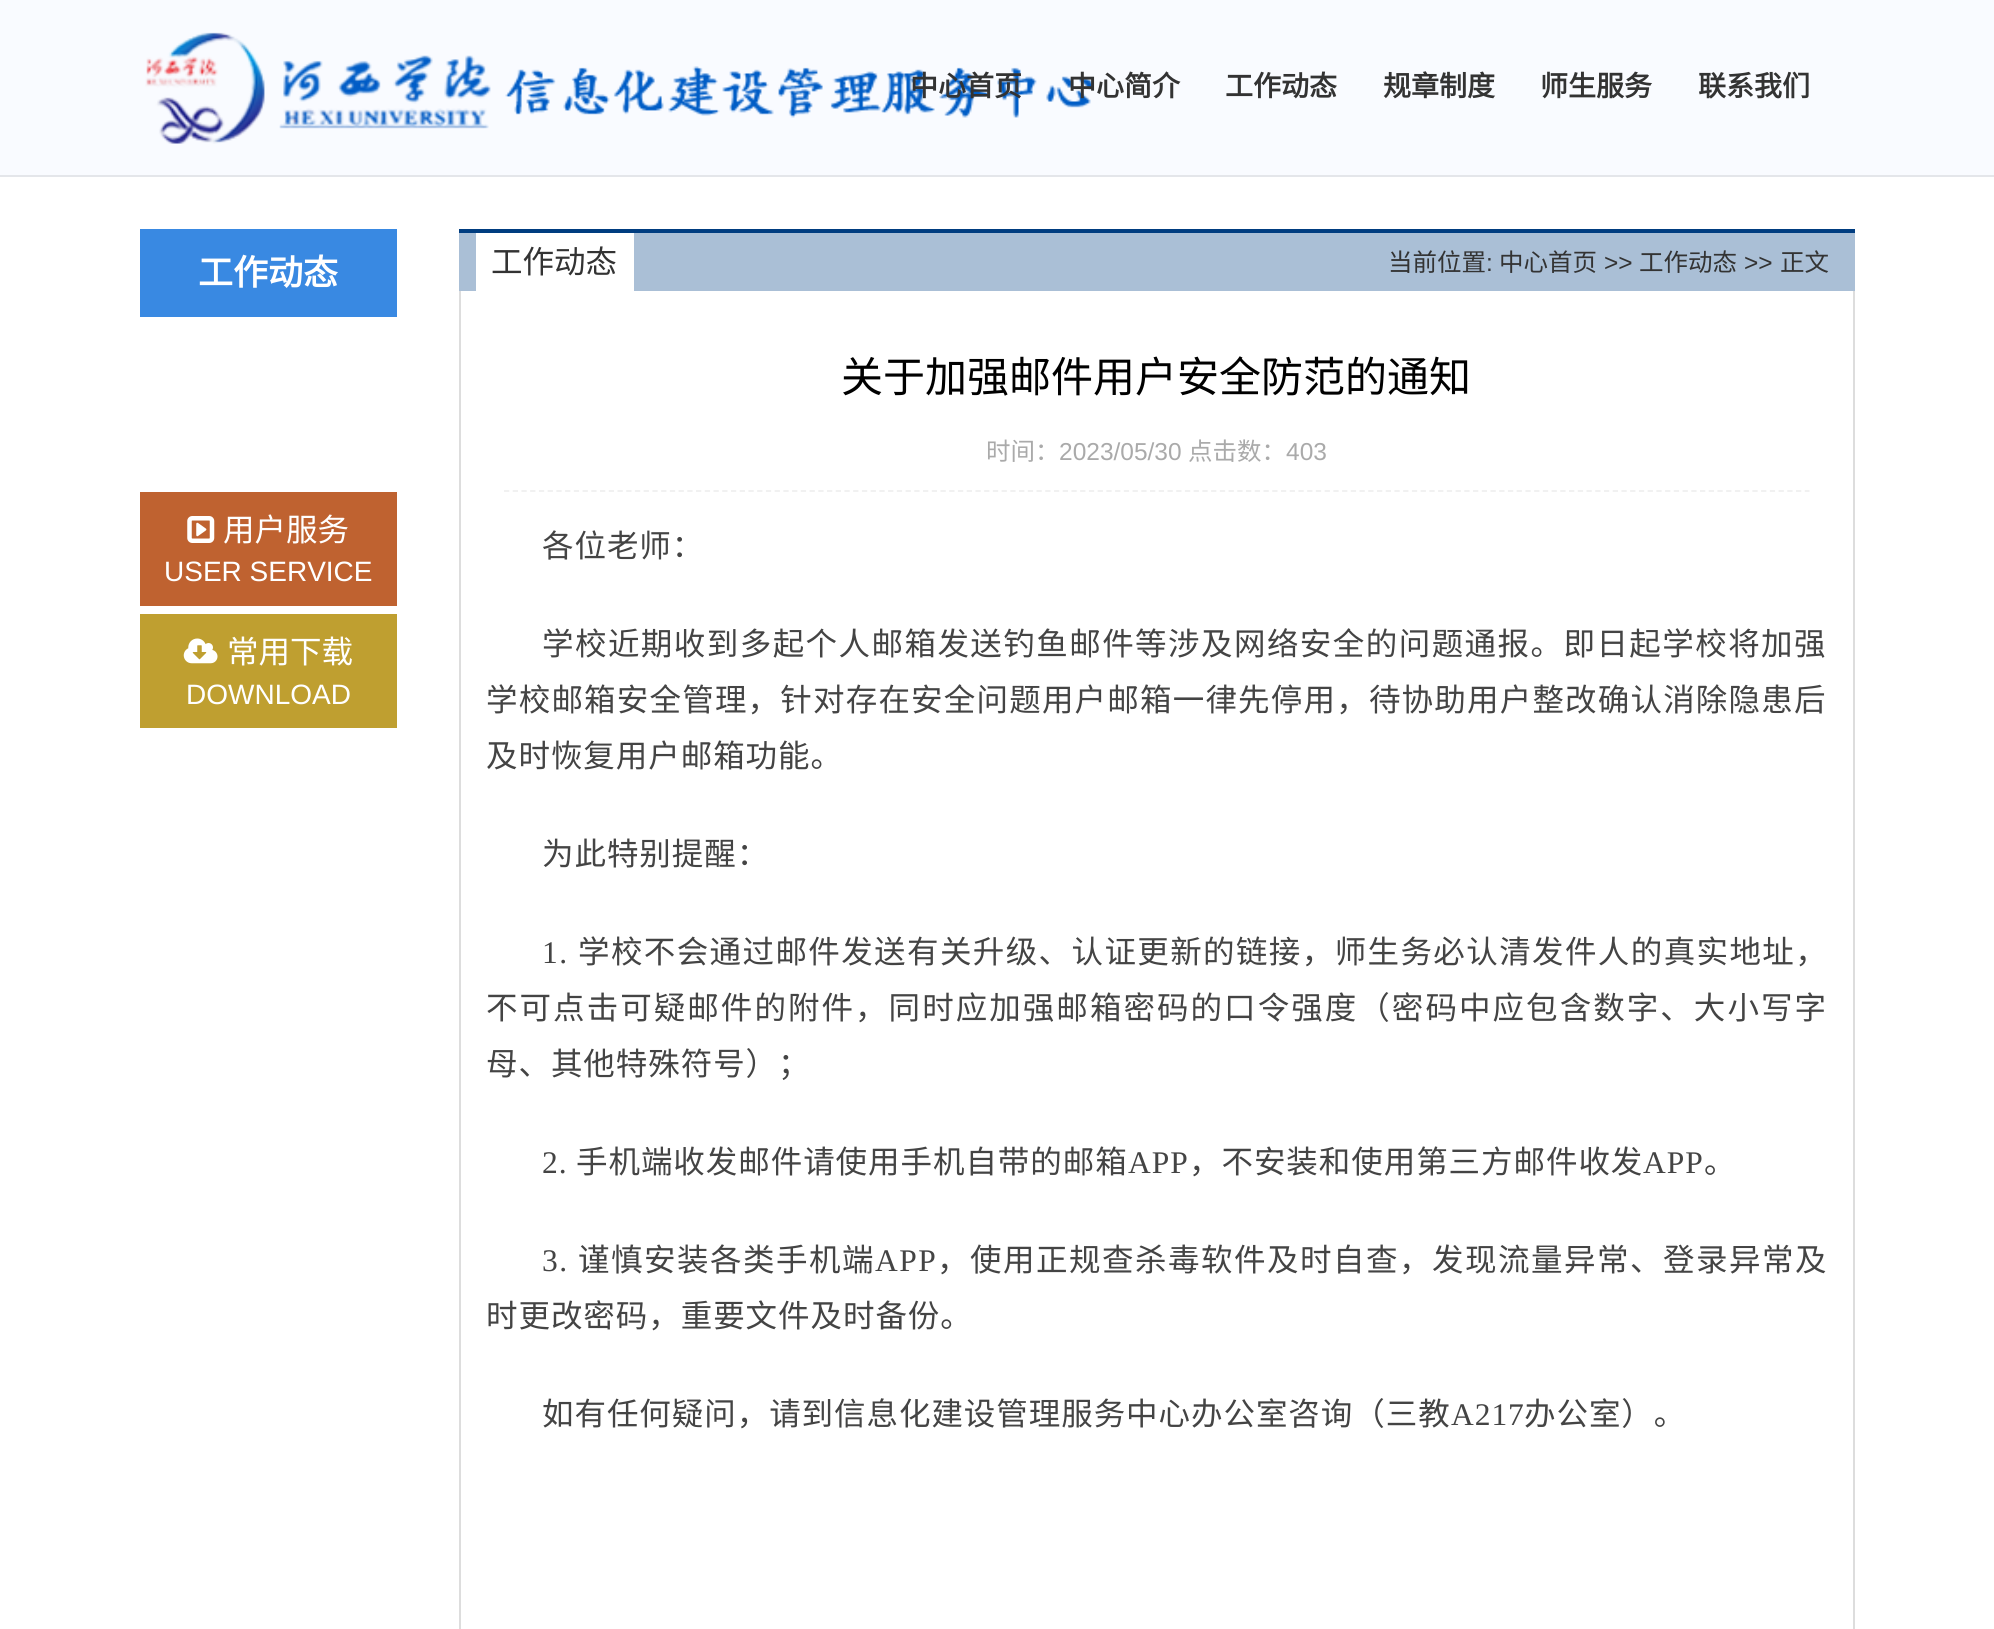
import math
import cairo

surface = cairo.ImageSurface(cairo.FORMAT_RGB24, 1994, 1629)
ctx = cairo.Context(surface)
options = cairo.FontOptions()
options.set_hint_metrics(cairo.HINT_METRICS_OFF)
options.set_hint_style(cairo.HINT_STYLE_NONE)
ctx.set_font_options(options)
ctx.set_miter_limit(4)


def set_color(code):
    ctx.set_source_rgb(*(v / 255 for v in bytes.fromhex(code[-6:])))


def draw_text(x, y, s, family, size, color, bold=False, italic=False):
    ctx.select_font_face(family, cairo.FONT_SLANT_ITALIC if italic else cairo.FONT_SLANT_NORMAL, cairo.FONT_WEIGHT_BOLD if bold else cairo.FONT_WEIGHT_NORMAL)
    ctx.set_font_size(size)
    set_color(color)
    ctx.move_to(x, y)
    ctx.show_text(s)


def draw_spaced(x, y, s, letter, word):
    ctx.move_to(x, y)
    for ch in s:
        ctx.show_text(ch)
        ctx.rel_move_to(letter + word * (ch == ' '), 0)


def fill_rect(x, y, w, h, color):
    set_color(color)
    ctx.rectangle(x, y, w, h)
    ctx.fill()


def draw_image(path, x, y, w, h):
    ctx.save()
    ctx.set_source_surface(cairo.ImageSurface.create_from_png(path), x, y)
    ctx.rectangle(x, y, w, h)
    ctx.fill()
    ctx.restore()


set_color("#ffffff")
ctx.paint()
fill_rect(0, 0, 1994, 175, "#f9fbff")
fill_rect(0, 175, 1994, 2, "#e4e6ea")
draw_image("assets/img1.png", 145, 32, 948, 112)
draw_text(910, 96, "中心首页", "Noto Sans CJK SC", 28, "#333333", bold=True)
draw_text(1068, 96, "中心简介", "Noto Sans CJK SC", 28, "#333333", bold=True)
draw_text(1225, 96, "工作动态", "Noto Sans CJK SC", 28, "#333333", bold=True)
draw_text(1383, 96, "规章制度", "Noto Sans CJK SC", 28, "#333333", bold=True)
draw_text(1540, 96, "师生服务", "Noto Sans CJK SC", 28, "#333333", bold=True)
draw_text(1698, 96, "联系我们", "Noto Sans CJK SC", 28, "#333333", bold=True)
fill_rect(140, 229, 257, 88, "#3989e2")
draw_text(198, 285, "工作动态", "Noto Sans CJK SC", 35, "#ffffff", bold=True)
fill_rect(140, 492, 257, 114, "#bf6230")
draw_image("assets/img2.png", 187, 516, 28, 27)
draw_text(223, 541, "用户服务", "Noto Sans CJK SC", 31.5, "#ffffff")
draw_text(164, 581, "USER SERVICE", "Liberation Sans", 28, "#ffffff")
fill_rect(140, 614, 257, 114, "#bf9f30")
draw_image("assets/img3.png", 183, 638, 35, 26)
draw_text(227, 663, "常用下载", "Noto Sans CJK SC", 31.5, "#ffffff")
draw_text(186, 704, "DOWNLOAD", "Liberation Sans", 28, "#ffffff")
fill_rect(459, 233, 1396, 58, "#aabfd6")
fill_rect(459, 229, 1396, 4, "#003d80")
fill_rect(476, 233, 158, 58, "#ffffff")
draw_text(491, 273, "工作动态", "Noto Sans CJK SC", 31.5, "#333333")
draw_text(1388, 271, "当前位置", "Noto Sans CJK SC", 24.5, "#333333")
draw_text(1486, 271, ":", "Liberation Sans", 24.5, "#333333")
draw_text(1499, 271, "中心首页", "Noto Sans CJK SC", 24.5, "#333333")
draw_text(1604, 271, ">>", "Liberation Sans", 24.5, "#333333")
draw_text(1639, 271, "工作动态", "Noto Sans CJK SC", 24.5, "#333333")
draw_text(1744, 271, ">>", "Liberation Sans", 24.5, "#333333")
draw_text(1780, 271, "正文", "Noto Sans CJK SC", 24.5, "#333333")
fill_rect(1853, 291, 2, 1338, "#dddddd")
fill_rect(459, 291, 2, 1338, "#dddddd")
draw_text(841, 392, "关于加强邮件用户安全防范的通知", "Noto Sans CJK SC", 42, "#000000")
ctx.new_path()
ctx.move_to(504, 491)
ctx.line_to(1809.5, 491)
set_color("#efefef")
ctx.set_line_width(1.8)
ctx.set_dash([5.25, 3.48])
ctx.stroke()
draw_text(986, 460, "时间：", "Noto Sans CJK SC", 24.5, "#aaaaaa")
draw_text(1059, 460, "2023/05/30", "Liberation Sans", 24.5, "#aaaaaa")
draw_text(1188, 460, "点击数：", "Noto Sans CJK SC", 24.5, "#aaaaaa")
draw_text(1286, 460, "403", "Liberation Sans", 24.5, "#aaaaaa")
ctx.select_font_face("Noto Sans CJK SC")
ctx.set_font_size(31.5)
set_color("#444444")
draw_spaced(542, 557, "各位老师：", 0.95, 0)
draw_spaced(542, 655, "学校近期收到多起个人邮箱发送钓鱼邮件等涉及网络安全的问题通报。即日起学校将加强", 1.45, 0)
draw_spaced(486, 711, "学校邮箱安全管理，针对存在安全问题用户邮箱一律先停用，待协助用户整改确认消除隐患后", 1.2, 0)
draw_spaced(486, 767, "及时恢复用户邮箱功能。", 0.95, 0)
draw_spaced(542, 865, "为此特别提醒：", 0.95, 0)
ctx.select_font_face("Liberation Serif")
draw_spaced(542, 963, "1.", 1.4, 0)
ctx.select_font_face("Noto Sans CJK SC")
draw_spaced(578, 963, "学校不会通过邮件发送有关升级、认证更新的链接，师生务必认清发件人的真实地址，", 1.4, 0)
draw_spaced(486, 1019, "不可点击可疑邮件的附件，同时应加强邮箱密码的口令强度（密码中应包含数字、大小写字", 2.05, 0)
draw_spaced(486, 1075, "母、其他特殊符号）；", 0.95, 0)
ctx.select_font_face("Liberation Serif")
draw_spaced(542, 1173, "2.", 0.95, 0)
ctx.select_font_face("Noto Sans CJK SC")
draw_spaced(576, 1173, "手机端收发邮件请使用手机自带的邮箱", 0.95, 0)
ctx.select_font_face("Liberation Serif")
draw_spaced(1128, 1173, "APP", 0.95, 0)
ctx.select_font_face("Noto Sans CJK SC")
draw_spaced(1189, 1173, "，不安装和使用第三方邮件收发", 0.95, 0)
ctx.select_font_face("Liberation Serif")
draw_spaced(1643, 1173, "APP", 0.95, 0)
ctx.select_font_face("Noto Sans CJK SC")
draw_spaced(1704, 1173, "。", 0.95, 0)
ctx.select_font_face("Liberation Serif")
draw_spaced(542, 1271, "3.", 1.5, 0)
ctx.select_font_face("Noto Sans CJK SC")
draw_spaced(578, 1271, "谨慎安装各类手机端", 1.5, 0)
ctx.select_font_face("Liberation Serif")
draw_spaced(875, 1271, "APP", 1.5, 0)
ctx.select_font_face("Noto Sans CJK SC")
draw_spaced(937, 1271, "，使用正规查杀毒软件及时自查，发现流量异常、登录异常及", 1.5, 0)
draw_spaced(486, 1327, "时更改密码，重要文件及时备份。", 0.95, 0)
draw_spaced(542, 1425, "如有任何疑问，请到信息化建设管理服务中心办公室咨询（三教", 0.95, 0)
ctx.select_font_face("Liberation Serif")
draw_spaced(1451, 1425, "A217", 0.95, 0)
ctx.select_font_face("Noto Sans CJK SC")
draw_spaced(1524, 1425, "办公室）。", 0.95, 0)
surface.write_to_png("output.png")
